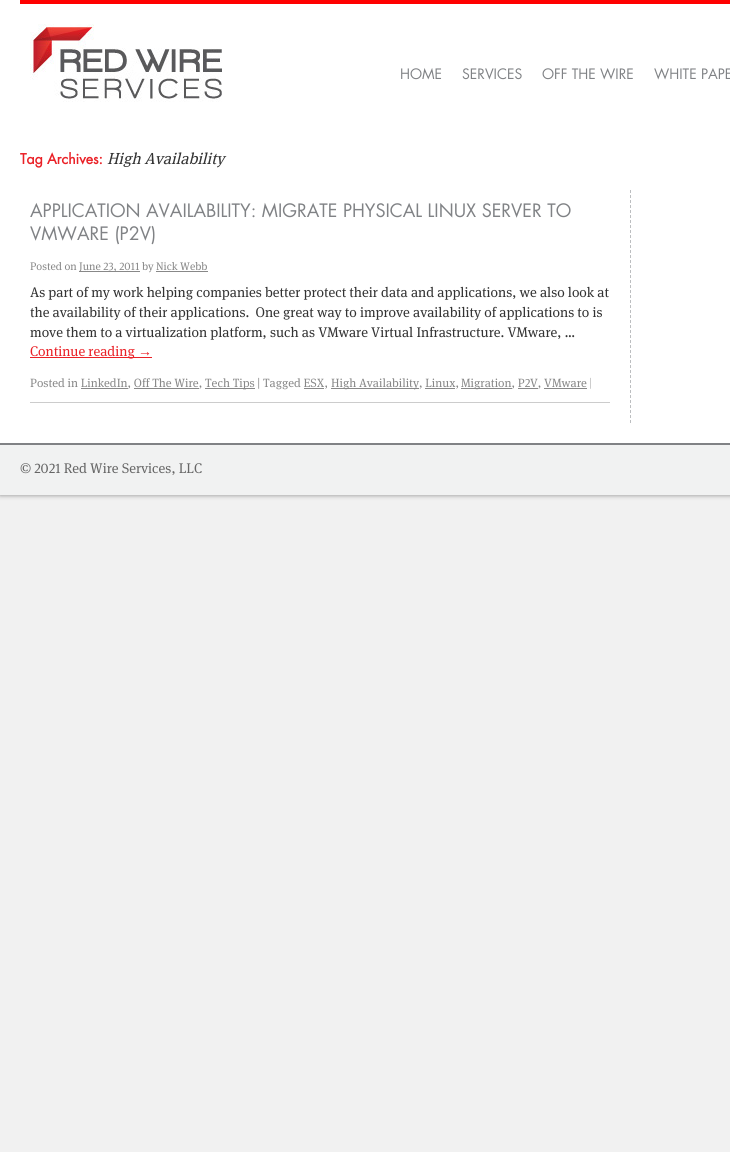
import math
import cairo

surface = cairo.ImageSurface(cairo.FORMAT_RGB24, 730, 1152)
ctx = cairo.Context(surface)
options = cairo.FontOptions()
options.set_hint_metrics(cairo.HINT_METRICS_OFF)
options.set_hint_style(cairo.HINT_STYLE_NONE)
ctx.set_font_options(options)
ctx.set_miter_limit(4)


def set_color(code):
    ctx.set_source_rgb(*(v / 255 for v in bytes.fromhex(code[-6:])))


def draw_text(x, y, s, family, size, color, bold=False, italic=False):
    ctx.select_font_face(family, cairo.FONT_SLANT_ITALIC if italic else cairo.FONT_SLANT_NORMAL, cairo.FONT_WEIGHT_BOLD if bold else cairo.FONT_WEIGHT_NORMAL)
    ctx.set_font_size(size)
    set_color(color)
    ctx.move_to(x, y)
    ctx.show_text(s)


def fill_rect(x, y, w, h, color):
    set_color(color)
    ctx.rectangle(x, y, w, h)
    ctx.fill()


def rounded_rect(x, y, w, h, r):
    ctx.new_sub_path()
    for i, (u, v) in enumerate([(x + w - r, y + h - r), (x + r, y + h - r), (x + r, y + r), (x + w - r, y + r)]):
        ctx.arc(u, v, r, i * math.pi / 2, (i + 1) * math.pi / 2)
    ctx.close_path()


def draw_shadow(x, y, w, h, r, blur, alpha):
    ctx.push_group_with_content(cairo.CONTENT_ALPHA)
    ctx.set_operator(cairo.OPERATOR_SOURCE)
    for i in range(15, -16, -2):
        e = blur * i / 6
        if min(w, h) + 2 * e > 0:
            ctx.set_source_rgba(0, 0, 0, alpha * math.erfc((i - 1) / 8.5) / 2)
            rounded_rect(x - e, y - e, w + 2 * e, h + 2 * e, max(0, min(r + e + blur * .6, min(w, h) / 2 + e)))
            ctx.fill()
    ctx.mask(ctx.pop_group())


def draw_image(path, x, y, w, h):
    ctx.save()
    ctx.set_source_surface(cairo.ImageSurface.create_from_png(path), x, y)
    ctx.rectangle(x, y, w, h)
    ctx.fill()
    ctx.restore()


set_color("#f1f1f1")
ctx.paint()
set_color("#888888")
draw_shadow(0, 0, 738, 495, 0, 2.5, 1)
fill_rect(0, 0, 730, 443, "#ffffff")
fill_rect(20, 0, 710, 4, "#ff0000")
draw_image("assets/img1.png", 30, 24, 192, 78)
draw_text(400, 79, "HOME", "Futura", 14, "#808285")
draw_text(462, 79, "SERVICES", "Futura", 14, "#808285")
draw_text(542, 79, "OFF THE WIRE", "Futura", 14, "#808285")
draw_text(654, 79, "WHITE PAPE", "Futura", 14, "#808285")
draw_text(20, 164, "Tag Archives:", "Futura", 14, "#ea2127", bold=True)
draw_text(107, 164, "High Availability", "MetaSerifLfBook", 16, "#333333", italic=True)
ctx.new_path()
ctx.move_to(630.5, 190)
ctx.line_to(630.5, 423)
set_color("#bcbec0")
ctx.set_line_width(1)
ctx.set_dash([3, 2])
ctx.stroke()
draw_text(30, 217, "APPLICATION AVAILABILITY: MIGRATE PHYSICAL LINUX SERVER TO", "Futura", 18, "#808285")
draw_text(30, 240, "VMWARE (P2V)", "Futura", 18, "#808285")
draw_text(30, 270, "Posted on", "MetaSerifLfBook", 11, "#888888")
fill_rect(79, 271, 61, 1, "#888888")
draw_text(79, 270, "June 23, 2011 by Nick Webb", "MetaSerifLfBook", 11, "#888888")
fill_rect(156, 271, 52, 1, "#888888")
draw_text(30, 297, "As part of my work helping companies better protect their data and applications, we also look at", "MetaSerifLfBook", 14, "#333333")
draw_text(30, 317, "the availability of their applications.  One great way to improve availability of applications to is", "MetaSerifLfBook", 14, "#333333")
draw_text(30, 337, "move them to a virtualization platform, such as VMware Virtual Infrastructure. VMware, …", "MetaSerifLfBook", 14, "#333333")
fill_rect(30, 357, 122, 1, "#ea2127")
draw_text(30, 356, "Continue reading", "MetaSerifLfBook", 14, "#ea2127")
draw_text(138, 356, "→", "Liberation Serif", 14, "#ea2127")
fill_rect(30, 402, 580, 1, "#cccccc")
draw_text(30, 387, "Posted in LinkedIn, Off The Wire,", "MetaSerifLfBook", 12, "#888888")
fill_rect(81, 388, 47, 1, "#888888")
fill_rect(134, 388, 65, 1, "#888888")
fill_rect(205, 388, 50, 1, "#888888")
draw_text(205, 387, "Tech Tips | Tagged ESX,", "MetaSerifLfBook", 12, "#888888")
fill_rect(331, 388, 88, 1, "#888888")
draw_text(331, 387, "High Availability, Linux,", "MetaSerifLfBook", 12, "#888888")
fill_rect(304, 388, 20, 1, "#888888")
fill_rect(425, 388, 30, 1, "#888888")
fill_rect(461, 388, 51, 1, "#888888")
draw_text(461, 387, "Migration, P2V, VMware |", "MetaSerifLfBook", 12, "#888888")
fill_rect(518, 388, 20, 1, "#888888")
fill_rect(544, 388, 43, 1, "#888888")
fill_rect(0, 445, 730, 50, "#f1f2f2")
fill_rect(0, 443, 730, 2, "#808285")
draw_text(20, 473, "© 2021 Red Wire Services, LLC", "MetaSerifLfBook", 14, "#666666")
surface.write_to_png("output.png")
